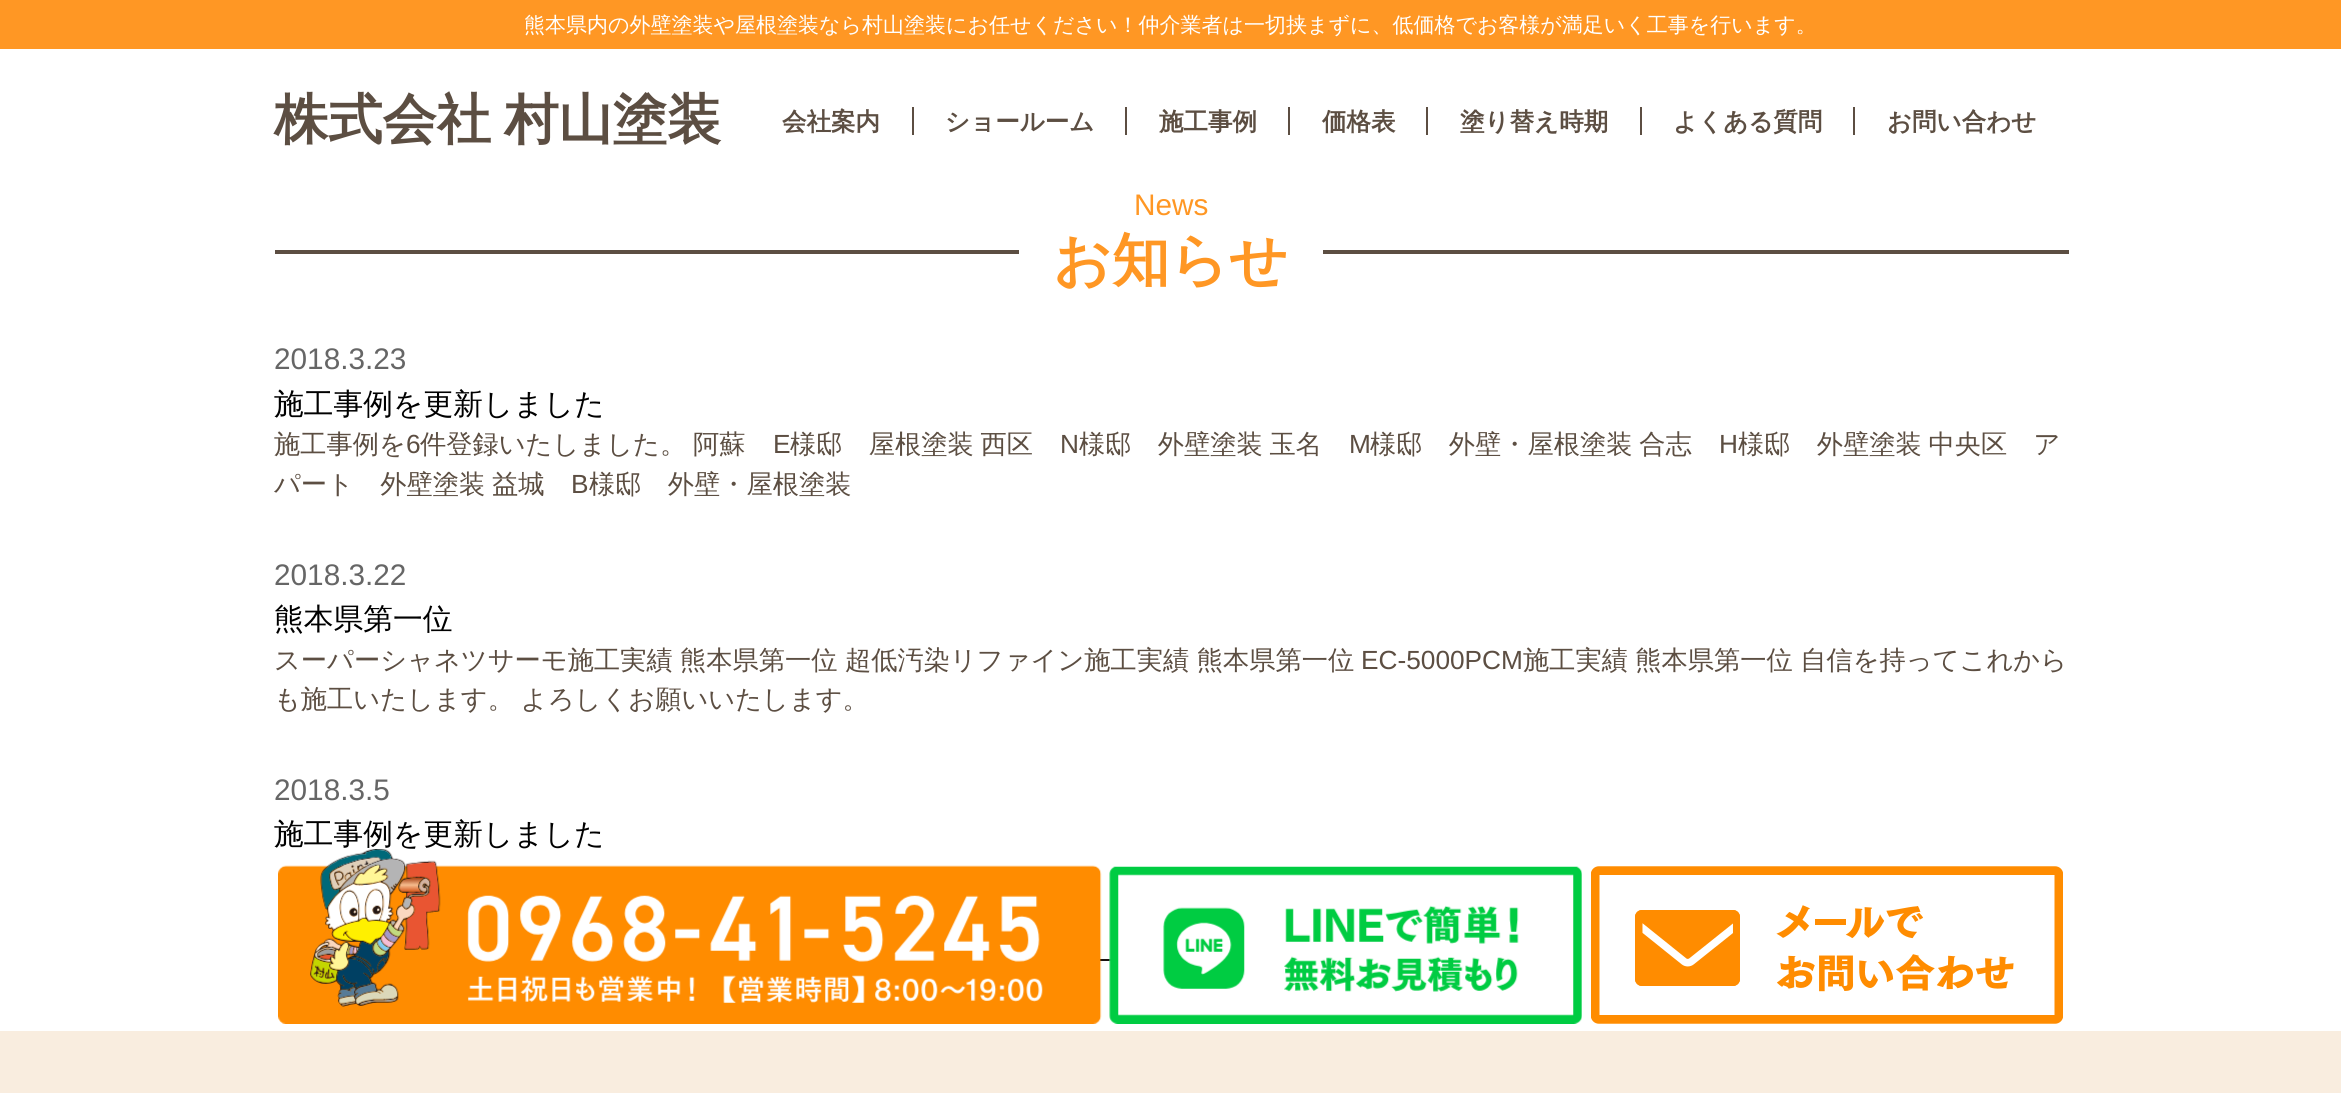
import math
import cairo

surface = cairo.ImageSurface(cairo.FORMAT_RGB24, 2341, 1093)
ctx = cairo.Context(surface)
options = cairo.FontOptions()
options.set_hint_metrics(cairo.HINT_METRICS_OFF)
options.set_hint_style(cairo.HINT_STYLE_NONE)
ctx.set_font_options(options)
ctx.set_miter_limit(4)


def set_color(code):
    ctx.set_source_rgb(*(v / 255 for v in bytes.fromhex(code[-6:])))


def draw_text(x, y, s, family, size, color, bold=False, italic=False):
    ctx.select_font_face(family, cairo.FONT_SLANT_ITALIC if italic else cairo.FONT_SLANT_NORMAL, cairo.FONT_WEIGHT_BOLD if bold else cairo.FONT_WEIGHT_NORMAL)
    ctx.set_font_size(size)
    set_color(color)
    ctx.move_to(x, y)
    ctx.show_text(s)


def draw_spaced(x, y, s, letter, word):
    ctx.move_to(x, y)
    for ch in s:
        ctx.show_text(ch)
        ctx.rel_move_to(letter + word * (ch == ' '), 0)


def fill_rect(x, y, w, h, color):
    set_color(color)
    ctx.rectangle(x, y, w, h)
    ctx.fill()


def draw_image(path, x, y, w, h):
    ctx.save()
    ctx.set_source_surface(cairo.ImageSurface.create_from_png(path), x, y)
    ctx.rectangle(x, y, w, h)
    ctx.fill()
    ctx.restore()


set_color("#ffffff")
ctx.paint()
fill_rect(0, 0, 2341, 49, "#ff9724")
draw_text(524, 32, "熊本県内の外壁塗装や屋根塗装なら村山塗装にお任せください！仲介業者は一切挟まずに、低価格でお客様が満足いく工事を行います。", "WenQuanYi Zen Hei Medium", 21, "#ffffff")
ctx.select_font_face("WenQuanYi Zen Hei", cairo.FONT_SLANT_NORMAL, cairo.FONT_WEIGHT_BOLD)
ctx.set_font_size(54.25)
set_color("#5c4e42")
draw_spaced(274, 138, "株式会社 村山塗装", 0, -3)
draw_text(782, 130, "会社案内", "WenQuanYi Zen Hei", 24.5, "#5c4e42", bold=True)
fill_rect(912, 107, 2, 28, "#5c4e42")
draw_text(945, 130, "ショールーム", "WenQuanYi Zen Hei", 24.5, "#5c4e42", bold=True)
fill_rect(1125, 107, 2, 28, "#5c4e42")
draw_text(1159, 130, "施工事例", "WenQuanYi Zen Hei", 24.5, "#5c4e42", bold=True)
fill_rect(1288, 107, 2, 28, "#5c4e42")
draw_text(1322, 130, "価格表", "WenQuanYi Zen Hei", 24.5, "#5c4e42", bold=True)
fill_rect(1426, 107, 2, 28, "#5c4e42")
draw_text(1460, 130, "塗り替え時期", "WenQuanYi Zen Hei", 24.5, "#5c4e42", bold=True)
fill_rect(1640, 107, 2, 28, "#5c4e42")
draw_text(1673, 130, "よくある質問", "WenQuanYi Zen Hei", 24.5, "#5c4e42", bold=True)
fill_rect(1853, 107, 2, 28, "#5c4e42")
draw_text(1887, 130, "お問い合わせ", "WenQuanYi Zen Hei", 24.5, "#5c4e42", bold=True)
draw_text(1134, 215, "News", "Liberation Sans", 29.75, "#ff9724")
fill_rect(275, 250, 1794, 4, "#5c4e42")
fill_rect(1019, 250, 304, 4, "#ffffff")
draw_text(1053, 280, "お知らせ", "WenQuanYi Zen Hei", 57.75, "#ff9724", bold=True)
draw_text(274, 369, "2018.3.23", "Liberation Sans", 29.75, "#666666")
draw_text(274, 414, "施工事例を更新しました", "WenQuanYi Zen Hei Medium", 29.75, "#000000")
draw_text(274, 453, "施工事例を", "WenQuanYi Zen Hei Medium", 26.25, "#5c4e42")
draw_text(406, 453, "6", "Liberation Sans", 26.25, "#5c4e42")
ctx.select_font_face("WenQuanYi Zen Hei Medium")
draw_spaced(420, 453, "件登録いたしました。 阿蘇", 0, -1)
draw_text(773, 453, "E", "Liberation Sans", 26.25, "#5c4e42")
ctx.select_font_face("WenQuanYi Zen Hei Medium")
draw_spaced(790, 453, "様邸　屋根塗装 西区", 0, -1)
draw_text(1060, 453, "N", "Liberation Sans", 26.25, "#5c4e42")
ctx.select_font_face("WenQuanYi Zen Hei Medium")
draw_spaced(1079, 453, "様邸　外壁塗装 玉名", 0, -1)
draw_text(1349, 453, "M", "Liberation Sans", 26.25, "#5c4e42")
ctx.select_font_face("WenQuanYi Zen Hei Medium")
draw_spaced(1370, 453, "様邸　外壁・屋根塗装 合志", 0, -1)
draw_text(1719, 453, "H", "Liberation Sans", 26.25, "#5c4e42")
ctx.select_font_face("WenQuanYi Zen Hei Medium")
draw_spaced(1738, 453, "様邸　外壁塗装 中央区　ア", 0, -1)
draw_spaced(274, 493, "パート　外壁塗装 益城", 0, -1)
draw_text(571, 493, "B", "Liberation Sans", 26.25, "#5c4e42")
draw_text(589, 493, "様邸　外壁・屋根塗装", "WenQuanYi Zen Hei Medium", 26.25, "#5c4e42")
draw_text(274, 585, "2018.3.22", "Liberation Sans", 29.75, "#666666")
draw_text(274, 629, "熊本県第一位", "WenQuanYi Zen Hei Medium", 29.75, "#000000")
ctx.set_font_size(26.25)
set_color("#5c4e42")
draw_spaced(274, 669, "スーパーシャネツサーモ施工実績 熊本県第一位 超低汚染リファイン施工実績 熊本県第一位", 0, -0.5)
draw_text(1361, 669, "EC-5000PCM", "Liberation Sans", 26.25, "#5c4e42")
ctx.select_font_face("WenQuanYi Zen Hei Medium")
draw_spaced(1523, 669, "施工実績 熊本県第一位 自信を持ってこれから", 0, -0.5)
draw_spaced(274, 708, "も施工いたします。 よろしくお願いいたします。", 0, -1)
draw_text(274, 800, "2018.3.5", "Liberation Sans", 29.75, "#666666")
draw_text(274, 844, "施工事例を更新しました", "WenQuanYi Zen Hei Medium", 29.75, "#000000")
fill_rect(1100, 959, 11, 2, "#1a1311")
fill_rect(0, 1031, 2341, 62, "#f9eddf")
draw_image("assets/img1.png", 278, 849, 824, 175)
draw_image("assets/img2.png", 1109, 866, 473, 158)
draw_image("assets/img3.png", 1591, 866, 472, 158)
surface.write_to_png("output.png")
